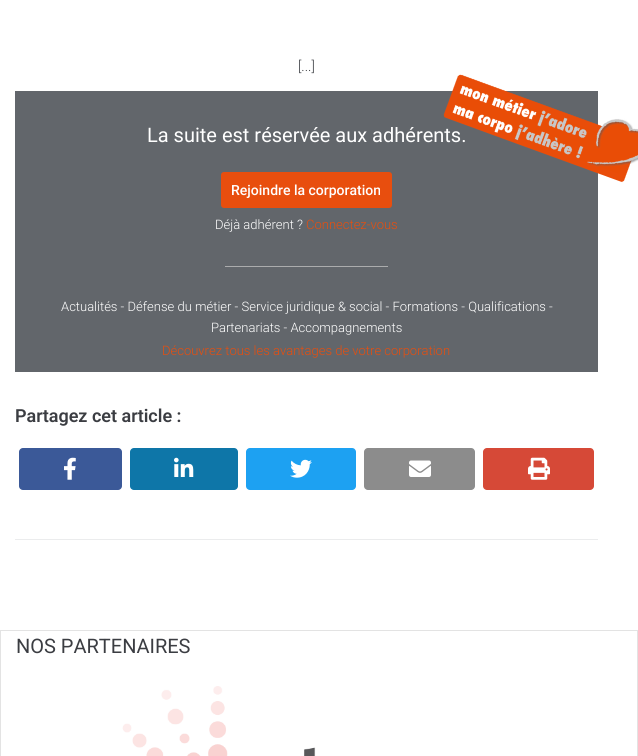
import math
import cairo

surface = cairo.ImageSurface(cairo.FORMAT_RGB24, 638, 756)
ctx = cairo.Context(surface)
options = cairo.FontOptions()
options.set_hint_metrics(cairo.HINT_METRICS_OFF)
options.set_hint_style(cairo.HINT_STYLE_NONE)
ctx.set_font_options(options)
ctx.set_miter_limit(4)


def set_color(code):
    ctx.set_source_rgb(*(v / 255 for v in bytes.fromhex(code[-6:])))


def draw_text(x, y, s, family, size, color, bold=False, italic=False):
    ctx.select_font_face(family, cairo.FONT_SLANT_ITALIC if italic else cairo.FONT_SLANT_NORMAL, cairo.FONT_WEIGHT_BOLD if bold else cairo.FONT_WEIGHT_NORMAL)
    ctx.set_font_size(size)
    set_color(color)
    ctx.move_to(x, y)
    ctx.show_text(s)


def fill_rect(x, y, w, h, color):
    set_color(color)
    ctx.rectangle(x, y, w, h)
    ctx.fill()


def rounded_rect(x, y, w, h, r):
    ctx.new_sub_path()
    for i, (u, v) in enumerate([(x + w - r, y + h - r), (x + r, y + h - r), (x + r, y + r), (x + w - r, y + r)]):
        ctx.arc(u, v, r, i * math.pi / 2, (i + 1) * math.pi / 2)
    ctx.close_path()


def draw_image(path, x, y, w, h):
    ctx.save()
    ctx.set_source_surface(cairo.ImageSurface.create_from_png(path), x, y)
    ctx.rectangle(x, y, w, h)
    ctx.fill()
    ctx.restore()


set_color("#ffffff")
ctx.paint()
fill_rect(15, 539, 583, 1, "#ebeced")
draw_text(298, 71, "[...]", "Roboto Light", 14, "#3b3d42")
fill_rect(15, 91, 583, 281, "#62666b")
draw_text(147, 142, "La suite est réservée aux adhérents.", "Roboto", 20, "#ffffff")
draw_image("assets/img1.png", 443, 74, 195, 109)
set_color("#e84e0e")
rounded_rect(221, 172, 171, 36, 3)
ctx.fill()
draw_text(231, 195, "Rejoindre la corporation", "Roboto Medium", 14, "#ffffff")
draw_text(215, 229, "Déjà adhérent ?", "Roboto Light", 13, "#ffffff")
draw_text(306, 229, "Connectez-vous", "Roboto Light", 13, "#e84e0e")
fill_rect(225, 266, 163, 1, "#abacad")
draw_text(61, 311, "Actualités - Défense du métier - Service juridique & social - Formations - Qualifications -", "Roboto Light", 13, "#ffffff")
draw_text(211, 332, "Partenariats - Accompagnements", "Roboto Light", 13, "#ffffff")
draw_text(162, 355, "Découvrez tous les avantages de votre corporation", "Roboto Light", 13, "#e84e0e")
draw_text(15, 422, "Partagez cet article :", "Roboto SemiBold", 18, "#3b3d42")
set_color("#3b5998")
rounded_rect(19, 448, 103, 42, 4)
ctx.fill()
draw_image("assets/img2.png", 64, 457, 12, 23)
set_color("#0e76a8")
rounded_rect(130, 448, 108, 42, 4)
ctx.fill()
draw_image("assets/img3.png", 174, 457, 20, 20)
set_color("#1da1f2")
rounded_rect(246, 448, 110, 42, 4)
ctx.fill()
draw_image("assets/img4.png", 290, 459, 22, 19)
set_color("#8c8c8c")
rounded_rect(364, 448, 111, 42, 4)
ctx.fill()
draw_image("assets/img5.png", 409, 460, 22, 17)
set_color("#d64937")
rounded_rect(483, 448, 111, 42, 4)
ctx.fill()
draw_image("assets/img6.png", 528, 457, 22, 23)
ctx.rectangle(0.5, 630.5, 637, 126)
set_color("#e3e3e3")
ctx.set_line_width(1)
ctx.stroke()
draw_text(16, 653, "NOS PARTENAIRES", "Roboto", 20, "#3b3d42")
draw_image("assets/img7.png", 122, 686, 194, 70)
surface.write_to_png("output.png")
